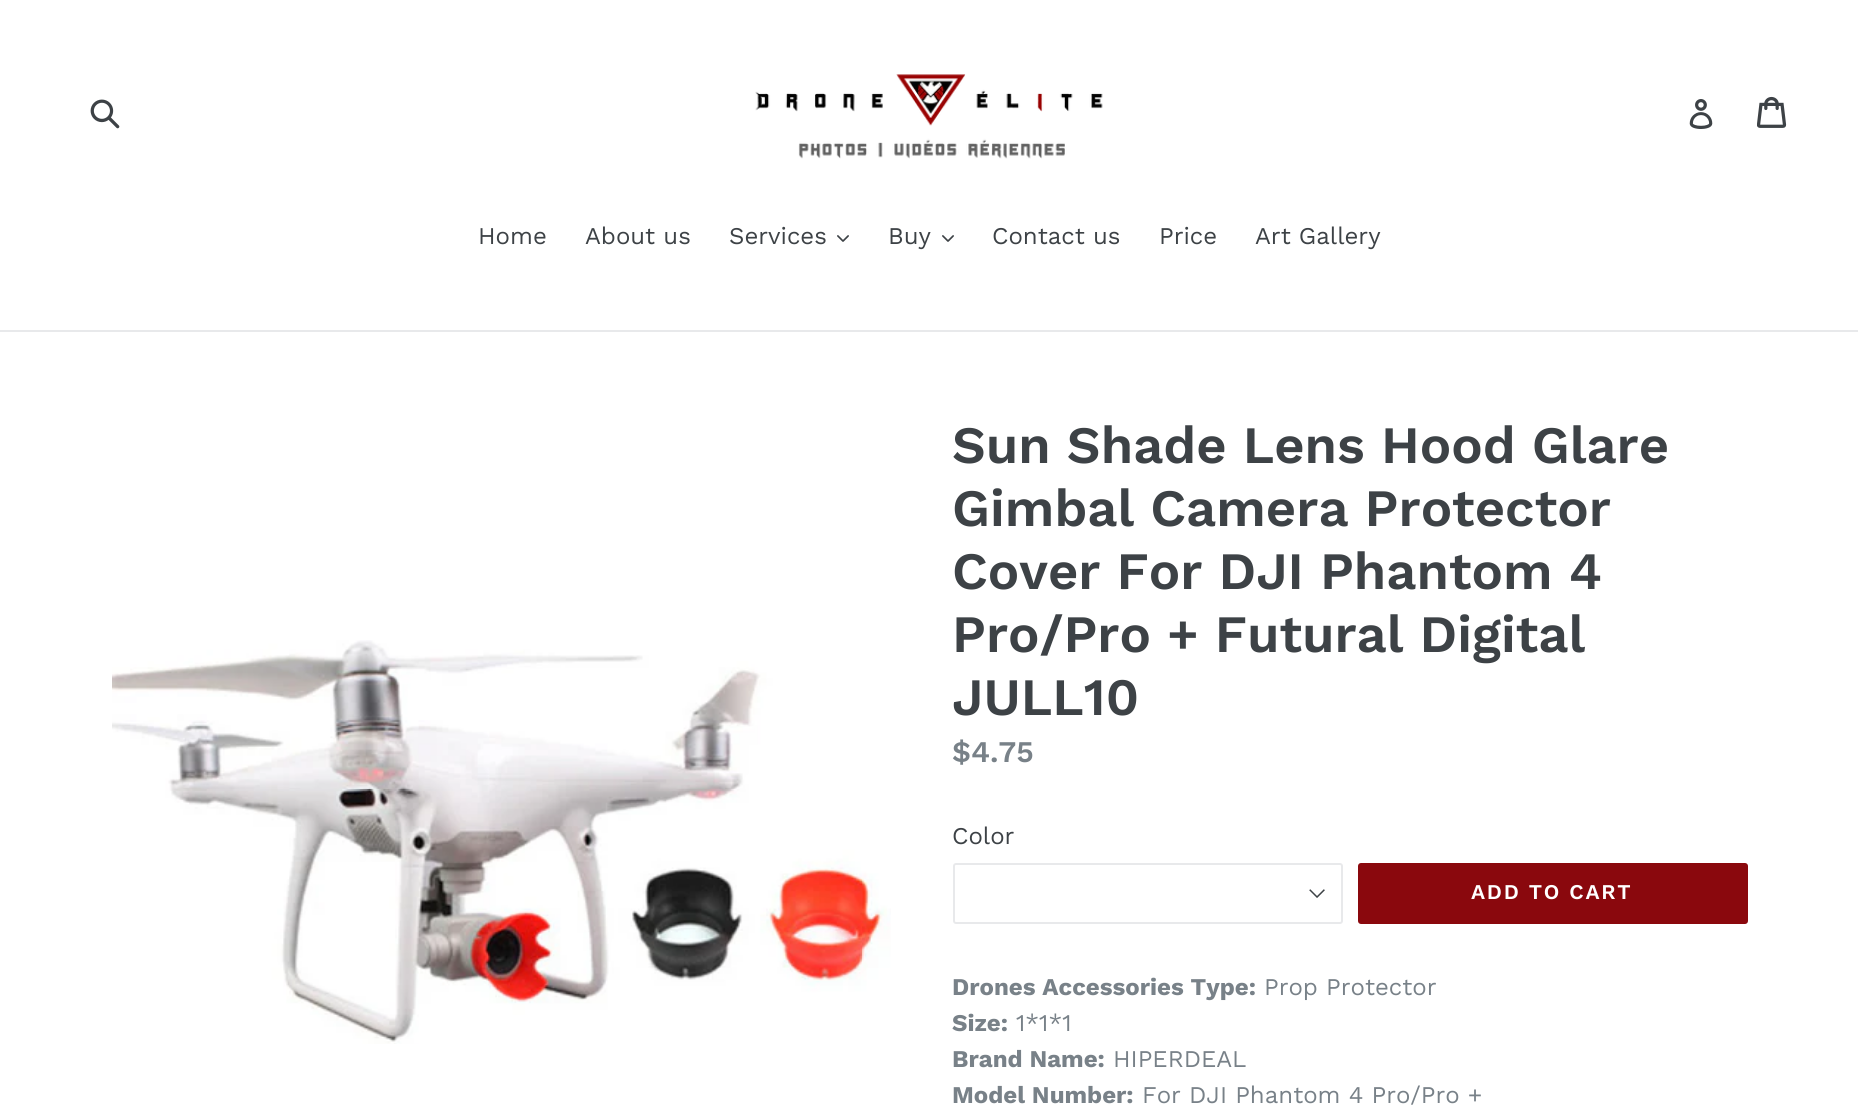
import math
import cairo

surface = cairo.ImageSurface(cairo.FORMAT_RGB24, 1858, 1120)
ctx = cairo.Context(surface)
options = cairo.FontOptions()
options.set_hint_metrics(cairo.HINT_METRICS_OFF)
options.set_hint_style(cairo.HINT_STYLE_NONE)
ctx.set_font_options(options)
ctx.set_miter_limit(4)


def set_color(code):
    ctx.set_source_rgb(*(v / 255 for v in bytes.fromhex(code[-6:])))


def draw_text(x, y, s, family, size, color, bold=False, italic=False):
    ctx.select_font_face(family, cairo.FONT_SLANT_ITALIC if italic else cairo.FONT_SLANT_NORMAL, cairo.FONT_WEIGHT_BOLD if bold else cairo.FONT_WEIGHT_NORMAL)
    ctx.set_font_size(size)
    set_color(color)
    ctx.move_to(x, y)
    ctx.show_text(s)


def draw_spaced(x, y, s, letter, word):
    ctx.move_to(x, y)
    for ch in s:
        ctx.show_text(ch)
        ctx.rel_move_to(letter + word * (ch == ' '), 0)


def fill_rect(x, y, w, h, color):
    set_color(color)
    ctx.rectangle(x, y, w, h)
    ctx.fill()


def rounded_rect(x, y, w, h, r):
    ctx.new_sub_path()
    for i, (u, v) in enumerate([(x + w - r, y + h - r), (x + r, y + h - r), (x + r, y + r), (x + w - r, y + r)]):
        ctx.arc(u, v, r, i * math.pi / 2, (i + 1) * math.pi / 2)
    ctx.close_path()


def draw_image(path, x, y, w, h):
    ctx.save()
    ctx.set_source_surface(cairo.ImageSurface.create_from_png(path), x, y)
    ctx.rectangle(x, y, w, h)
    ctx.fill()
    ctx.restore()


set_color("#ffffff")
ctx.paint()
draw_image("assets/img1.png", 90, 99, 30, 30)
draw_image("assets/img2.png", 755, 74, 348, 85)
draw_image("assets/img3.png", 1689, 99, 24, 30)
draw_image("assets/img4.png", 1757, 96, 30, 32)
fill_rect(0, 330, 1858, 2, "#e8e9eb")
draw_text(478, 244, "Home", "Work Sans", 24, "#3d4246")
draw_text(585, 244, "About us", "Work Sans", 24, "#3d4246")
draw_text(729, 244, "Services", "Work Sans", 24, "#3d4246")
draw_image("assets/img5.png", 837, 235, 12, 7)
draw_text(888, 244, "Buy", "Work Sans", 24, "#3d4246")
draw_image("assets/img5.png", 942, 235, 12, 7)
draw_text(992, 244, "Contact us", "Work Sans", 24, "#3d4246")
draw_text(1159, 244, "Price", "Work Sans", 24, "#3d4246")
draw_text(1255, 244, "Art Gallery", "Work Sans", 24, "#3d4246")
draw_image("assets/img6.png", 112, 640, 779, 404)
draw_text(952, 463, "Sun Shade Lens Hood Glare", "Work Sans SemiBold", 52.5, "#3d4246")
draw_text(952, 526, "Gimbal Camera Protector", "Work Sans SemiBold", 52.5, "#3d4246")
draw_text(952, 589, "Cover For DJI Phantom 4", "Work Sans SemiBold", 52.5, "#3d4246")
draw_text(952, 652, "Pro/Pro + Futural Digital", "Work Sans SemiBold", 52.5, "#3d4246")
draw_text(952, 715, "JULL10", "Work Sans SemiBold", 52.5, "#3d4246")
draw_text(952, 762, "$4.75", "Work Sans SemiBold", 30, "#788188")
draw_text(952, 844, "Color", "Work Sans", 24, "#3d4246")
draw_image("assets/img7.png", 1309, 889, 16, 9)
rounded_rect(954, 864, 388, 59, 2)
set_color("#e8e9eb")
ctx.stroke()
set_color("#8a080d")
rounded_rect(1358, 863, 390, 61, 3)
ctx.fill()
ctx.select_font_face("Work Sans SemiBold")
ctx.set_font_size(21)
set_color("#ffffff")
draw_spaced(1471, 899, "ADD TO CART", 1.75, 0)
draw_text(952, 995, "Drones Accessories Type:", "Work Sans", 24, "#788188", bold=True)
draw_text(1264, 995, "Prop Protector", "Work Sans", 24, "#788188")
draw_text(952, 1031, "Size:", "Work Sans", 24, "#788188", bold=True)
draw_text(1016, 1031, "1*1*1", "Work Sans", 24, "#788188")
draw_text(952, 1067, "Brand Name:", "Work Sans", 24, "#788188", bold=True)
draw_text(1113, 1067, "HIPERDEAL", "Work Sans", 24, "#788188")
draw_text(952, 1103, "Model Number:", "Work Sans", 24, "#788188", bold=True)
draw_text(1142, 1103, "For DJI Phantom 4 Pro/Pro +", "Work Sans", 24, "#788188")
surface.write_to_png("output.png")
